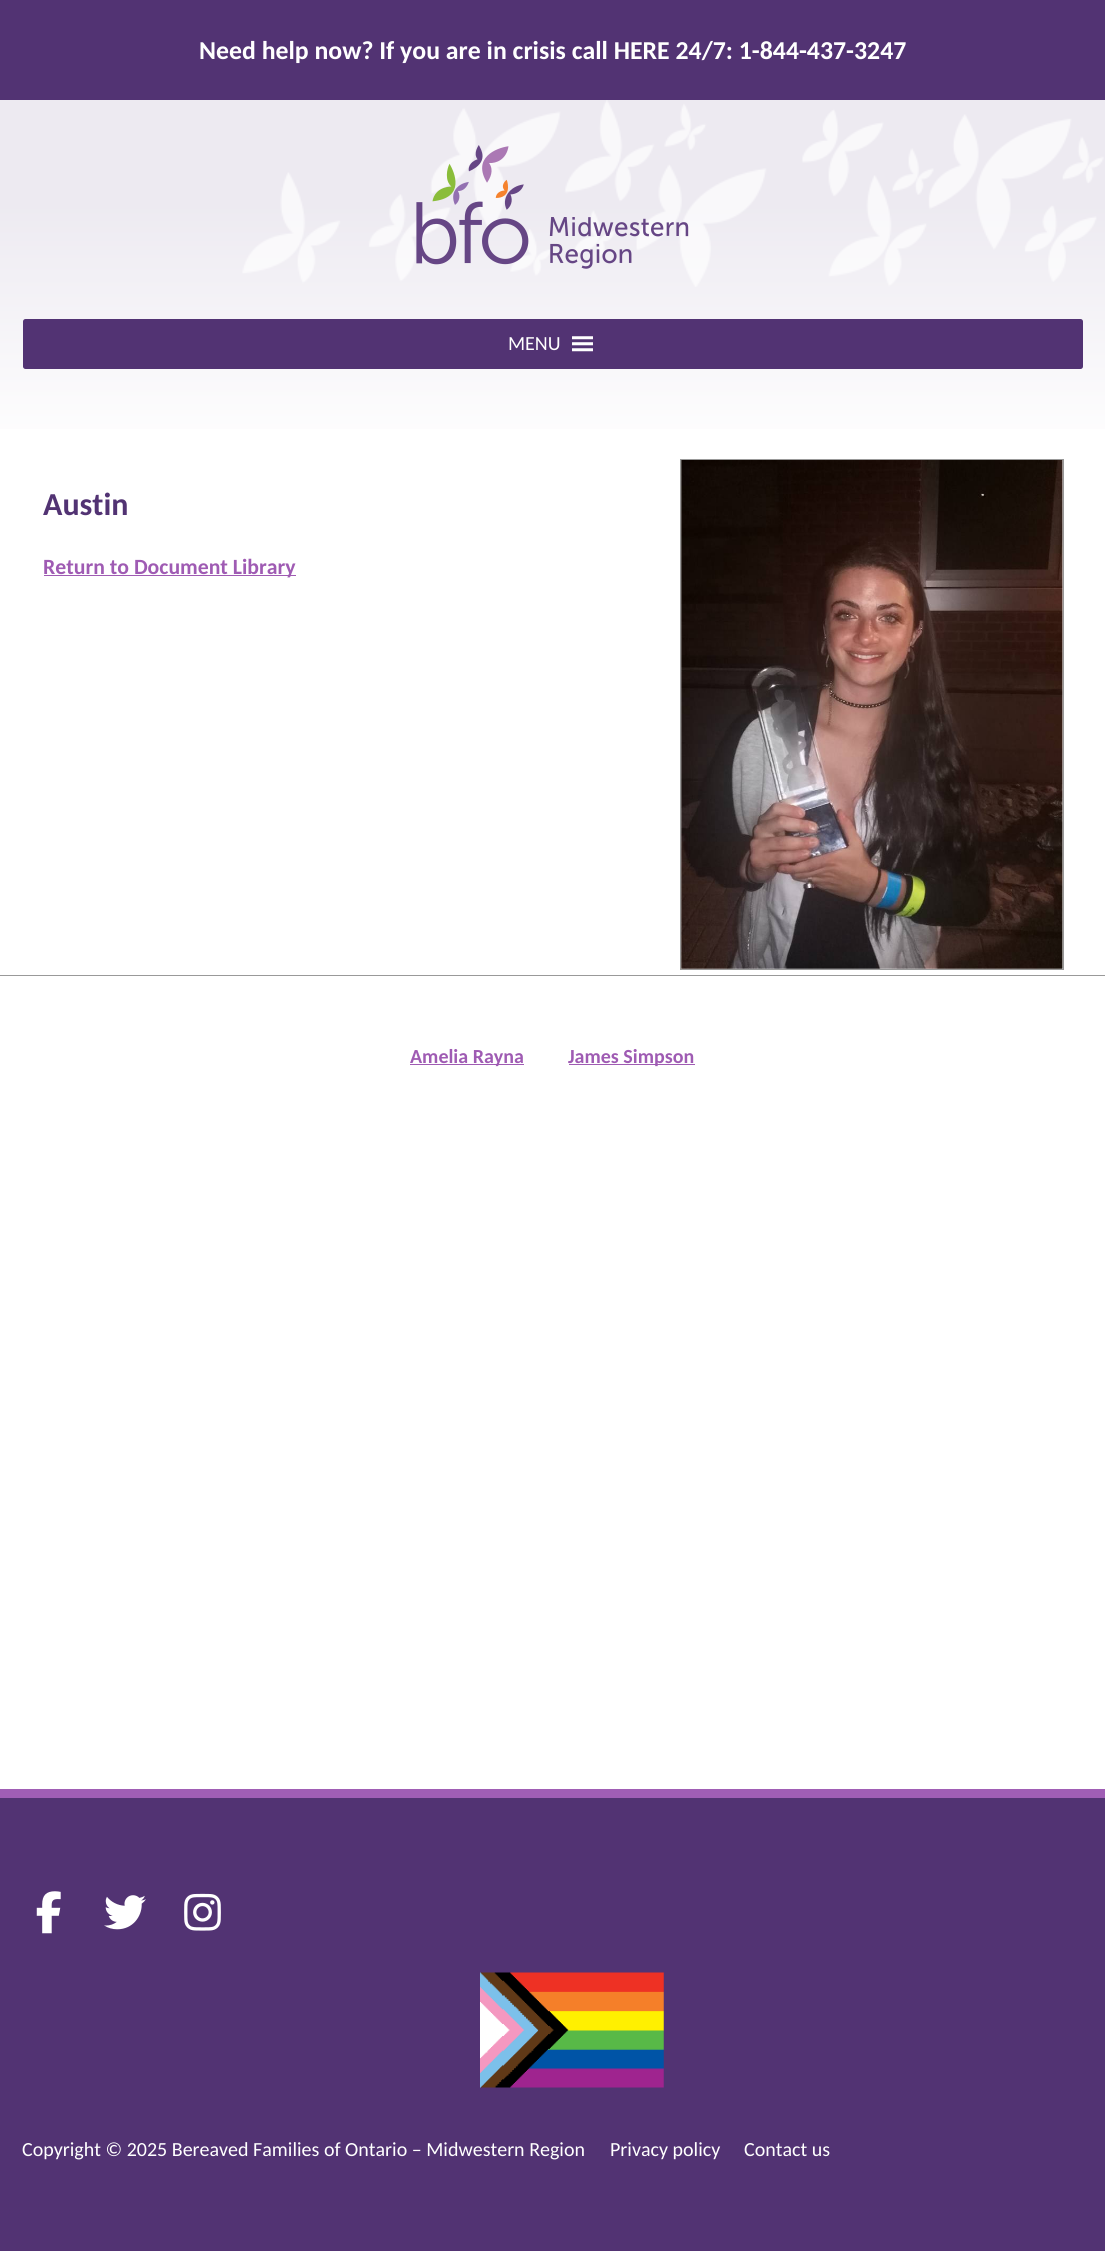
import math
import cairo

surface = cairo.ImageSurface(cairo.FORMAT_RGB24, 1105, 2251)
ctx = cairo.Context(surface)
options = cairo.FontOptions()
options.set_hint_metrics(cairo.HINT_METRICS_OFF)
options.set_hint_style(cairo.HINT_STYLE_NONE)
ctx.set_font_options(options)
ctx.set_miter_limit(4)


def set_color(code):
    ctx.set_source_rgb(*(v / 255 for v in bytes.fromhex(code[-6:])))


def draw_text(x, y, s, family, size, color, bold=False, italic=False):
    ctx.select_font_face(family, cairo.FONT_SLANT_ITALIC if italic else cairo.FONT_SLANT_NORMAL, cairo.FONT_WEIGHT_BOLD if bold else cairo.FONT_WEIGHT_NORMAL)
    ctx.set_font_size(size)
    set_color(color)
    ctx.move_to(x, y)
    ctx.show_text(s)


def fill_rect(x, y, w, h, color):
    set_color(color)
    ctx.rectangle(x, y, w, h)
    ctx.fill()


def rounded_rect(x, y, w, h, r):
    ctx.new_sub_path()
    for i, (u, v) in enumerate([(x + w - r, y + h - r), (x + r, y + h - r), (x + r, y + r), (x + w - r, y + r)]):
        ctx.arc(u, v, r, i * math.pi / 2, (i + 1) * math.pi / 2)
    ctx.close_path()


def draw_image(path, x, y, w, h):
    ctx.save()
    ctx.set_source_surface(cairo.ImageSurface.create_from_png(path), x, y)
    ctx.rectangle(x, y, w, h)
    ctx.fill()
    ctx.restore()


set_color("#ffffff")
ctx.paint()
fill_rect(0, 0, 1105, 100, "#523373")
draw_text(199, 59, "Need help now? If you are in crisis call HERE 24/7: 1-844-437-3247", "Carlito", 25.8, "#ffffff", bold=True)
gradient = cairo.LinearGradient(553, 100, 553, 459)
gradient.add_color_stop_rgba(0, 0.929, 0.918, 0.945, 1)
gradient.add_color_stop_rgba(0.29, 0.929, 0.918, 0.945, 1)
gradient.add_color_stop_rgba(1, 1, 1, 1, 1)
ctx.set_source(gradient)
ctx.rectangle(0, 100, 1105, 329)
ctx.fill()
draw_image("assets/img1.png", 242, 100, 862, 187)
draw_image("assets/img2.png", 416, 145, 273, 124)
set_color("#523373")
rounded_rect(23, 319, 1060, 50, 2.5)
ctx.fill()
draw_text(508, 350, "MENU", "Carlito", 20, "#ffffff")
draw_image("assets/img3.png", 572, 336, 21, 16)
draw_text(43, 515, "Austin", "Carlito", 32, "#523373", bold=True)
fill_rect(44, 575, 252, 1, "#9f5bb3")
draw_text(43, 574, "Return to Document Library", "Carlito", 21.75, "#9f5bb3", bold=True)
ctx.rectangle(680.5, 459.5, 383, 510)
set_color("#999999")
ctx.set_line_width(1)
ctx.stroke()
draw_image("assets/img4.png", 681, 460, 382, 509)
fill_rect(0, 975, 1105, 1, "#999999")
fill_rect(410, 1064, 114, 1, "#9f5bb3")
draw_text(410, 1063, "Amelia Rayna", "Carlito", 20, "#9f5bb3", bold=True)
fill_rect(569, 1064, 126, 1, "#9f5bb3")
draw_text(568, 1063, "James Simpson", "Carlito", 20, "#9f5bb3", bold=True)
fill_rect(0, 1798, 1105, 453, "#523373")
fill_rect(0, 1789, 1105, 9, "#a05eb5")
draw_image("assets/img5.png", 36, 1891, 25, 43)
draw_image("assets/img6.png", 104, 1895, 42, 35)
draw_image("assets/img7.png", 184, 1893, 37, 38)
draw_image("assets/img8.png", 480, 1972, 184, 116)
draw_text(22, 2156, "Copyright © 2025 Bereaved Families of Ontario – Midwestern Region", "Carlito", 20, "#ffffff")
draw_text(610, 2156, "Privacy policy", "Carlito", 20, "#ffffff")
draw_text(744, 2156, "Contact us", "Carlito", 20, "#ffffff")
surface.write_to_png("output.png")
